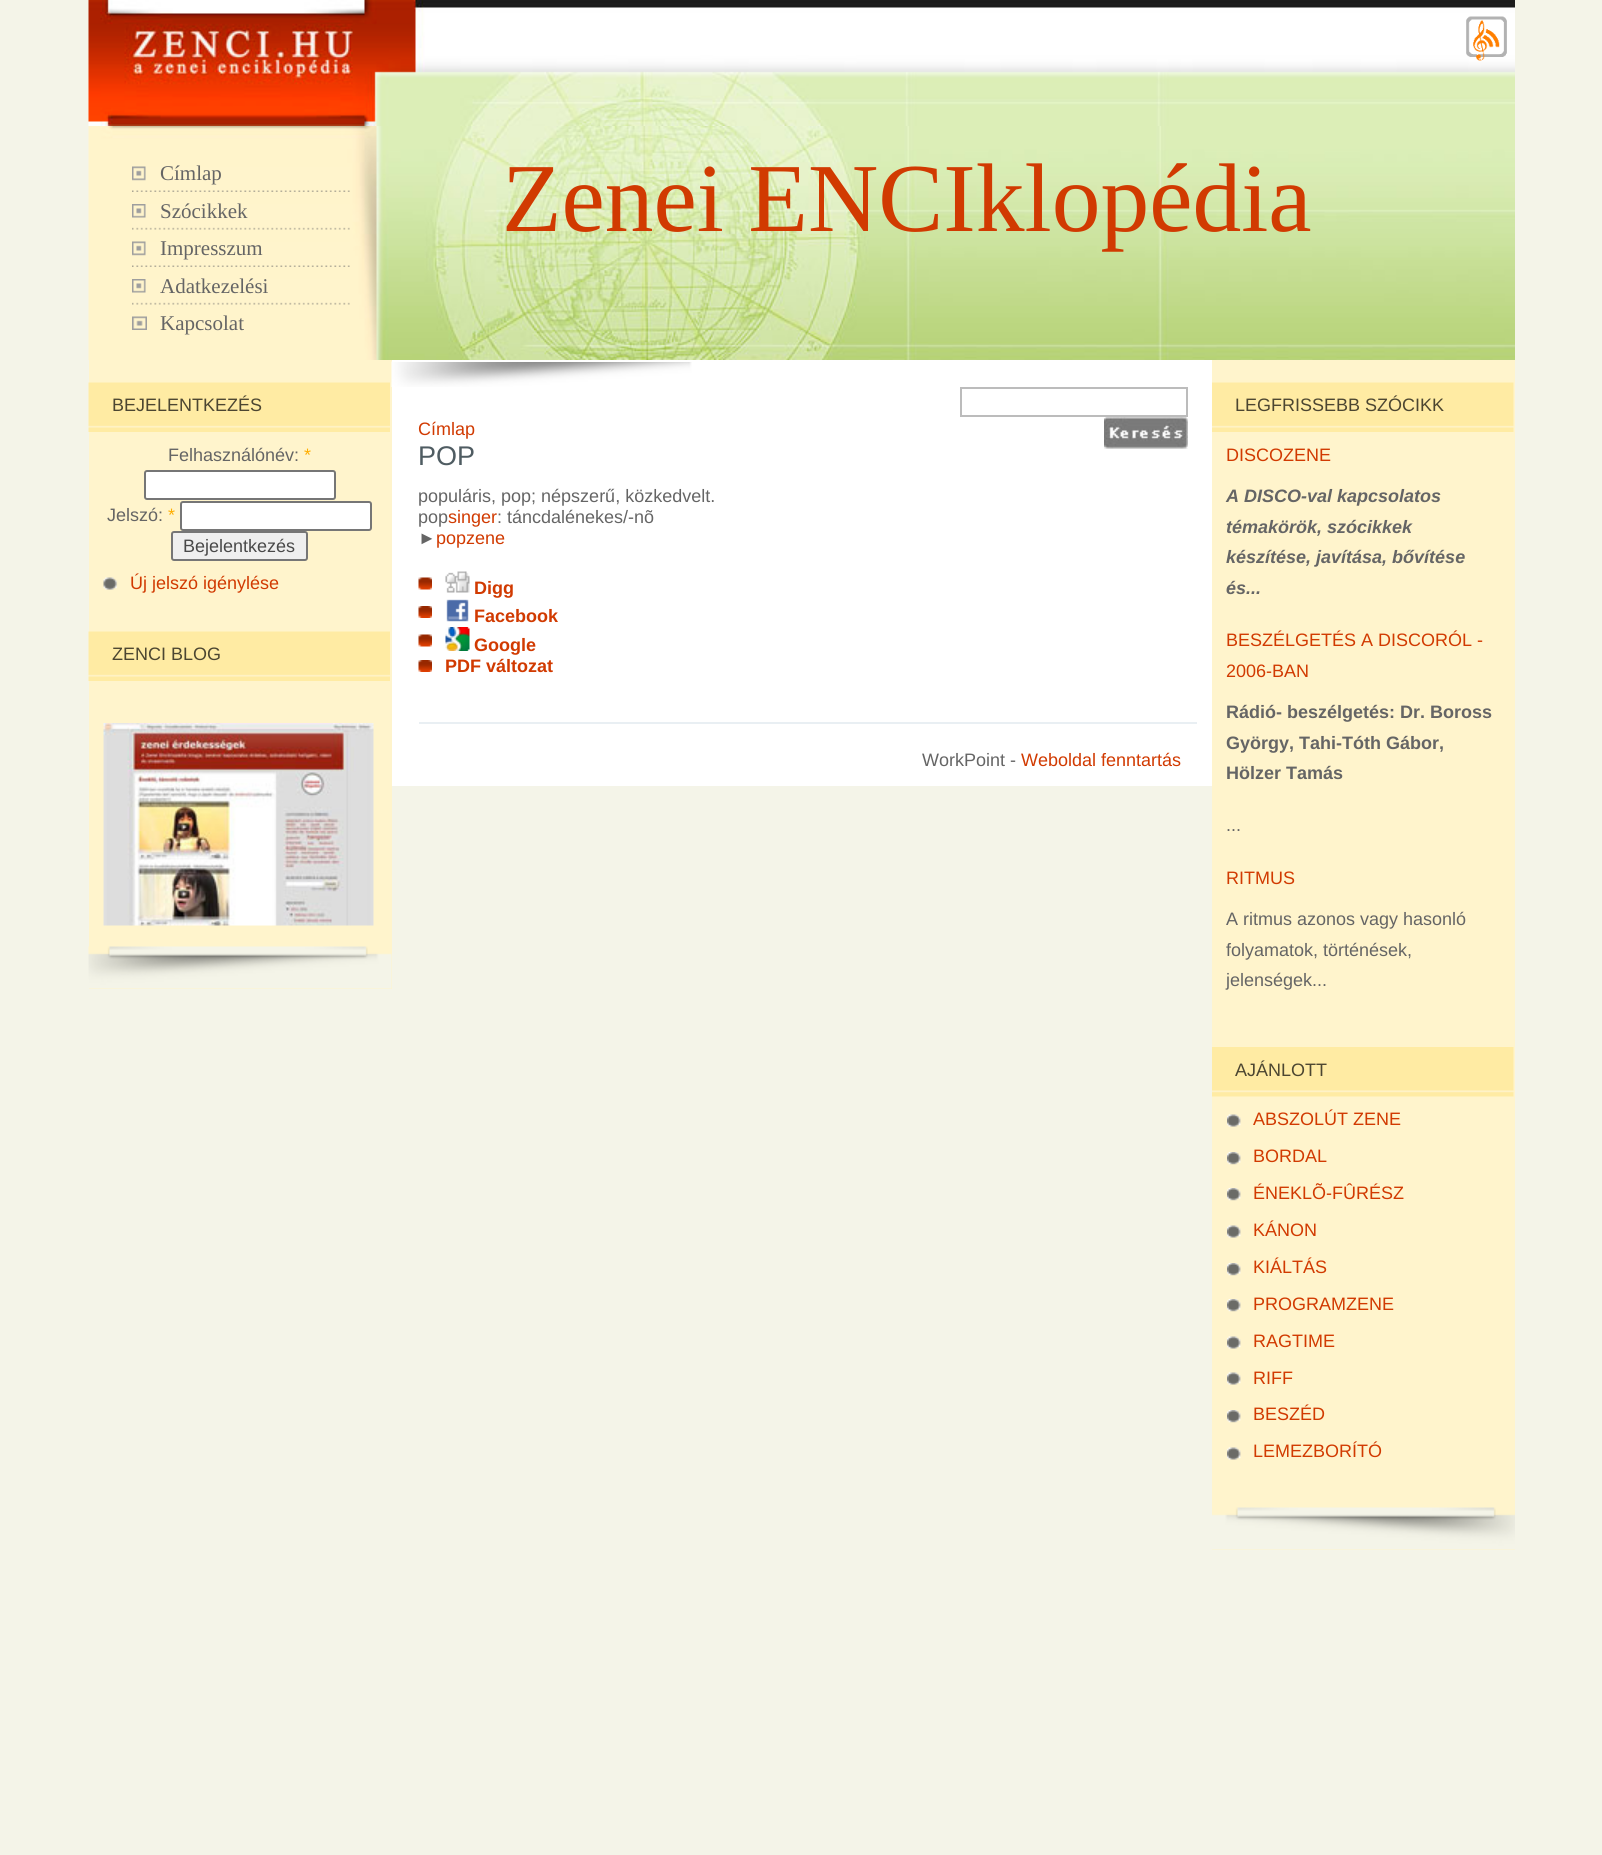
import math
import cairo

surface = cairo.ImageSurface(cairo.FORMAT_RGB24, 1602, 1855)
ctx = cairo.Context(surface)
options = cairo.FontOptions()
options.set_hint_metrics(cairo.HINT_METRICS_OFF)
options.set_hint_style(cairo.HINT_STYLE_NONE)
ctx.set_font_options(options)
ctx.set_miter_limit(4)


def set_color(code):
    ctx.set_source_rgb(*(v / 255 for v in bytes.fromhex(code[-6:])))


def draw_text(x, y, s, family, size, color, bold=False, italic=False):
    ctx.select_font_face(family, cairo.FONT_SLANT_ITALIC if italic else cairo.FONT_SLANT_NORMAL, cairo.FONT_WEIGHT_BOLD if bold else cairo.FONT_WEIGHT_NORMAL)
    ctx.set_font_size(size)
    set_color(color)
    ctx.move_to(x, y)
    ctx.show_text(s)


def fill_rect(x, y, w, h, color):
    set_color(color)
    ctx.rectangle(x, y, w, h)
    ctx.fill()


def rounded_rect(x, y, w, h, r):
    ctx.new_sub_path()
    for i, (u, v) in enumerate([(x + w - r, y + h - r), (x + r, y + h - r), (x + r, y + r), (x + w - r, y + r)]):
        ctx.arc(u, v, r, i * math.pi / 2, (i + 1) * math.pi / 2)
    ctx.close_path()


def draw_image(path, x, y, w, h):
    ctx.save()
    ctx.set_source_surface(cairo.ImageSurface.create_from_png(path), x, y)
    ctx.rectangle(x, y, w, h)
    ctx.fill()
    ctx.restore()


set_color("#f4f4e8")
ctx.paint()
draw_image("assets/img1.png", 88, 0, 1427, 126)
draw_image("assets/img2.png", 1466, 16, 41, 45)
draw_image("assets/img3.png", 88, 126, 1427, 234)
draw_image("assets/img4.png", 132, 166, 218, 26)
draw_text(160, 180, "Címlap", "Liberation Serif", 21, "#656565")
draw_image("assets/img5.png", 132, 204, 218, 26)
draw_text(160, 218, "Szócikkek", "Liberation Serif", 21, "#656565")
draw_image("assets/img4.png", 132, 241, 218, 26)
draw_text(160, 255, "Impresszum", "Liberation Serif", 21, "#656565")
draw_image("assets/img5.png", 132, 279, 218, 26)
draw_text(160, 293, "Adatkezelési", "Liberation Serif", 21, "#656565")
draw_image("assets/img6.png", 132, 316, 15, 14)
draw_text(160, 330, "Kapcsolat", "Liberation Serif", 21, "#656565")
draw_text(502, 231, "Zenei ENCIklopédia", "Liberation Serif", 97.5, "#d13a01")
fill_rect(89, 360, 303, 629, "#fff4cc")
draw_image("assets/img7.png", 88, 382, 302, 50)
draw_text(112, 411, "BEJELENTKEZÉS", "Liberation Sans", 18, "#4c4631")
draw_text(168, 461, "Felhasználónév:", "Liberation Sans", 18, "#656565")
draw_text(304, 461, "*", "Liberation Sans", 18, "#ffae00")
set_color("#ffffff")
rounded_rect(145, 471, 190, 28, 2)
ctx.fill_preserve()
set_color("#767676")
ctx.stroke()
draw_text(107, 521, "Jelszó:", "Liberation Sans", 18, "#656565")
draw_text(168, 521, "*", "Liberation Sans", 18, "#ffae00")
set_color("#ffffff")
rounded_rect(181, 502, 190, 28, 2)
ctx.fill_preserve()
set_color("#767676")
ctx.stroke()
set_color("#efefef")
rounded_rect(172, 532, 135, 28, 2)
ctx.fill_preserve()
set_color("#767676")
ctx.stroke()
draw_text(183, 552, "Bejelentkezés", "Liberation Sans", 18, "#494949")
draw_image("assets/img8.png", 103, 577, 15, 13)
draw_text(130, 589, "Új jelszó igénylése", "Liberation Sans", 18, "#d13a01")
draw_image("assets/img7.png", 88, 631, 302, 50)
draw_text(112, 660, "ZENCI BLOG", "Liberation Sans", 18, "#4c4631")
draw_image("assets/img9.png", 103, 723, 271, 203)
draw_image("assets/img10.png", 88, 946, 304, 43)
fill_rect(392, 362, 820, 424, "#ffffff")
draw_image("assets/img11.png", 391, 361, 301, 26)
fill_rect(392, 360, 820, 2, "#ffffff")
ctx.rectangle(961, 388, 226, 28)
set_color("#bcbcbc")
ctx.stroke()
fill_rect(1104, 448, 84, 1, "#efefef")
draw_image("assets/img12.png", 1104, 417, 84, 32)
draw_text(418, 435, "Címlap", "Liberation Sans", 18, "#d13a01")
draw_text(418, 465, "POP", "Liberation Sans", 27, "#4f5c62")
fill_rect(419, 722, 778, 2, "#e9eff3")
draw_text(418, 502, "populáris, pop; népszerű, közkedvelt.", "Liberation Sans", 18, "#656565")
draw_text(418, 523, "pop", "Liberation Sans", 18, "#656565")
draw_text(448, 523, "singer", "Liberation Sans", 18, "#d13a01")
draw_text(497, 523, ": táncdalénekes/-nõ", "Liberation Sans", 18, "#656565")
draw_text(418, 544, "►", "Liberation Sans", 18, "#656565")
draw_text(436, 544, "popzene", "Liberation Sans", 18, "#d13a01")
draw_image("assets/img13.png", 418, 577, 14, 13)
draw_image("assets/img14.png", 445, 571, 25, 22)
draw_text(474, 594, "Digg", "Liberation Sans", 18, "#d13a01", bold=True)
draw_image("assets/img15.png", 418, 606, 14, 12)
draw_image("assets/img16.png", 446, 599, 23, 23)
draw_text(474, 622, "Facebook", "Liberation Sans", 18, "#d13a01", bold=True)
draw_image("assets/img13.png", 418, 634, 14, 13)
draw_image("assets/img17.png", 445, 627, 25, 24)
draw_text(474, 651, "Google", "Liberation Sans", 18, "#d13a01", bold=True)
draw_image("assets/img15.png", 418, 660, 14, 12)
draw_text(445, 672, "PDF változat", "Liberation Sans", 18, "#d13a01", bold=True)
draw_text(922, 766, "WorkPoint -", "Liberation Sans", 18, "#656565")
draw_text(1021, 766, "Weboldal fenntartás", "Liberation Sans", 18, "#d13a01")
fill_rect(1212, 360, 303, 1190, "#fff4cc")
draw_image("assets/img18.png", 1212, 382, 302, 50)
draw_text(1235, 411, "LEGFRISSEBB SZÓCIKK", "Liberation Sans", 18, "#4c4631")
draw_text(1226, 461, "DISCOZENE", "Liberation Sans", 18, "#d13a01")
draw_text(1226, 502, "A DISCO-val kapcsolatos", "Liberation Sans", 18, "#656565", bold=True, italic=True)
draw_text(1226, 533, "témakörök, szócikkek", "Liberation Sans", 18, "#656565", bold=True, italic=True)
draw_text(1226, 563, "készítése, javítása, bővítése", "Liberation Sans", 18, "#656565", bold=True, italic=True)
draw_text(1226, 594, "és...", "Liberation Sans", 18, "#656565", bold=True, italic=True)
draw_text(1226, 646, "BESZÉLGETÉS A DISCORÓL -", "Liberation Sans", 18, "#d13a01")
draw_text(1226, 677, "2006-BAN", "Liberation Sans", 18, "#d13a01")
draw_text(1226, 718, "Rádió- beszélgetés: Dr. Boross", "Liberation Sans", 18, "#656565", bold=True)
draw_text(1226, 749, "György, Tahi-Tóth Gábor,", "Liberation Sans", 18, "#656565", bold=True)
draw_text(1226, 779, "Hölzer Tamás", "Liberation Sans", 18, "#656565", bold=True)
draw_text(1226, 831, "...", "Liberation Sans", 18, "#656565")
draw_text(1226, 884, "RITMUS", "Liberation Sans", 18, "#d13a01")
draw_text(1226, 925, "A ritmus azonos vagy hasonló", "Liberation Sans", 18, "#656565")
draw_text(1226, 956, "folyamatok, történések,", "Liberation Sans", 18, "#656565")
draw_text(1226, 986, "jelenségek...", "Liberation Sans", 18, "#656565")
draw_image("assets/img19.png", 1212, 1047, 302, 50)
draw_text(1235, 1076, "AJÁNLOTT", "Liberation Sans", 18, "#4c4631")
draw_image("assets/img20.png", 1227, 1114, 14, 13)
draw_text(1253, 1125, "ABSZOLÚT ZENE", "Liberation Sans", 18, "#d13a01")
draw_image("assets/img21.png", 1227, 1152, 14, 13)
draw_text(1253, 1162, "BORDAL", "Liberation Sans", 18, "#d13a01")
draw_image("assets/img21.png", 1227, 1188, 14, 13)
draw_text(1253, 1199, "ÉNEKLÕ-FÛRÉSZ", "Liberation Sans", 18, "#d13a01")
draw_image("assets/img20.png", 1227, 1225, 14, 13)
draw_text(1253, 1236, "KÁNON", "Liberation Sans", 18, "#d13a01")
draw_image("assets/img21.png", 1227, 1263, 14, 13)
draw_text(1253, 1273, "KIÁLTÁS", "Liberation Sans", 18, "#d13a01")
draw_image("assets/img21.png", 1227, 1299, 14, 13)
draw_text(1253, 1310, "PROGRAMZENE", "Liberation Sans", 18, "#d13a01")
draw_image("assets/img20.png", 1227, 1336, 14, 13)
draw_text(1253, 1347, "RAGTIME", "Liberation Sans", 18, "#d13a01")
draw_image("assets/img20.png", 1227, 1372, 14, 13)
draw_text(1253, 1384, "RIFF", "Liberation Sans", 18, "#d13a01")
draw_image("assets/img21.png", 1227, 1410, 14, 13)
draw_text(1253, 1420, "BESZÉD", "Liberation Sans", 18, "#d13a01")
draw_image("assets/img20.png", 1227, 1447, 14, 13)
draw_text(1253, 1457, "LEMEZBORÍTÓ", "Liberation Sans", 18, "#d13a01")
draw_image("assets/img22.png", 1212, 1507, 303, 43)
surface.write_to_png("output.png")
